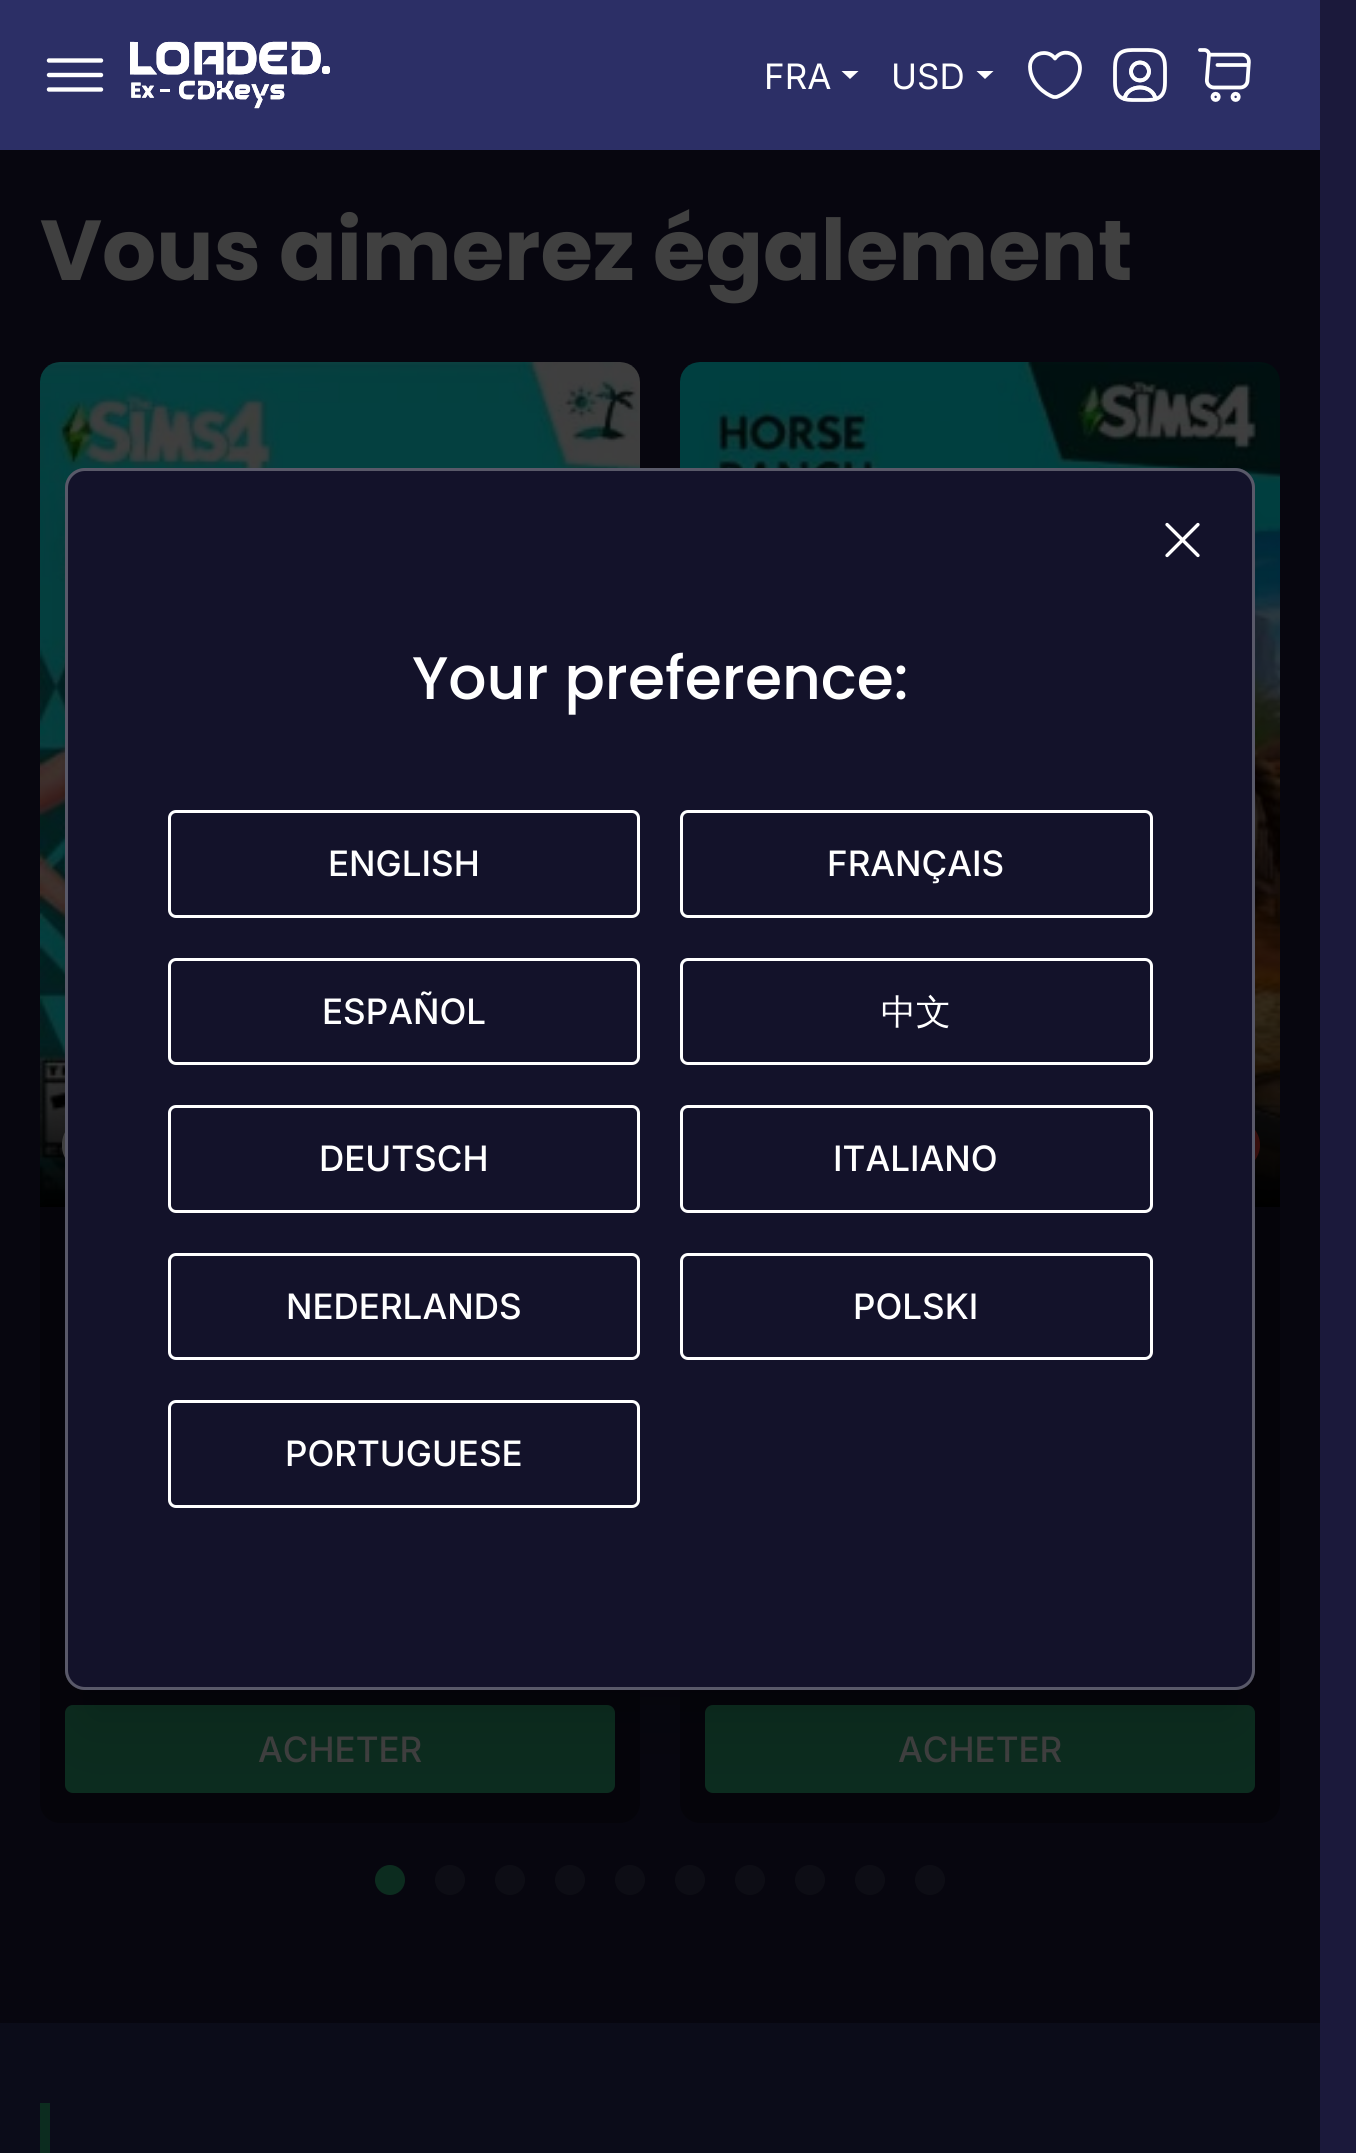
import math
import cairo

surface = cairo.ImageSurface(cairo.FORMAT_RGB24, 1356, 2153)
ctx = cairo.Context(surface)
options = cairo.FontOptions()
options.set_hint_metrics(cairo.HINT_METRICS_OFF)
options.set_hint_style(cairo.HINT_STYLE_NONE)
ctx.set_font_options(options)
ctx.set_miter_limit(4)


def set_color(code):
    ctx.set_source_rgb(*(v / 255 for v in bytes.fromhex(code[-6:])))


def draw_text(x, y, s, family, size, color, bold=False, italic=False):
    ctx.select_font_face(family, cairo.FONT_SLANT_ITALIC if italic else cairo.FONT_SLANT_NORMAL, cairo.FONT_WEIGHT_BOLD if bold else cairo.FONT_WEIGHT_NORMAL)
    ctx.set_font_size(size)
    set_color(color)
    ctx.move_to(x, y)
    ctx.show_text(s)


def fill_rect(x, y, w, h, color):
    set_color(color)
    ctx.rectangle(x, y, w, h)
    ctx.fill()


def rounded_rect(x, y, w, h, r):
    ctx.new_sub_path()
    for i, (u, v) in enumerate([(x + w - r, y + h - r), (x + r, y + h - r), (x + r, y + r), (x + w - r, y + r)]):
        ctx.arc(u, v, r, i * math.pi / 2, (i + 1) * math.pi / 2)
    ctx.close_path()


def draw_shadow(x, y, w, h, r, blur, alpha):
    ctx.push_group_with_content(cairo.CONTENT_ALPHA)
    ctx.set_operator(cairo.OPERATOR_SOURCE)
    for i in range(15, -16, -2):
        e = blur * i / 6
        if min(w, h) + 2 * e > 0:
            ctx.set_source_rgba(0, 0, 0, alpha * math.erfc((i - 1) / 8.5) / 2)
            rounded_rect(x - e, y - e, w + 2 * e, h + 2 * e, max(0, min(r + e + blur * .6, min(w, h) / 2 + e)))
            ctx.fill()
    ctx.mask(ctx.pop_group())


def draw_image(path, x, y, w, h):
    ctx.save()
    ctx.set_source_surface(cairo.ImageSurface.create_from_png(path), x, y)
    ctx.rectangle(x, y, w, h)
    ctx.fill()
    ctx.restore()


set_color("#1b193b")
ctx.paint()
fill_rect(0, 150, 1320, 1873, "#0e0d1e")
fill_rect(0, 0, 1320, 150, "#2c2f66")
ctx.new_path()
ctx.move_to(49, 60.5)
ctx.line_to(101, 60.5)
ctx.move_to(49, 75)
ctx.line_to(101, 75)
ctx.move_to(49, 89.5)
ctx.line_to(101, 89.5)
set_color("#ffffff")
ctx.set_line_width(4.4)
ctx.set_line_cap(cairo.LINE_CAP_ROUND)
ctx.stroke()
draw_image("assets/img1.png", 130, 41, 200, 68)
draw_text(764, 89, "FRA", "Inter", 35, "#ffffff")
ctx.new_path()
ctx.move_to(841.5, 71)
ctx.line_to(850, 79)
ctx.line_to(858.5, 71)
ctx.close_path()
ctx.fill()
draw_text(891, 89, "USD", "Inter", 35, "#ffffff")
ctx.new_path()
ctx.move_to(976.5, 71)
ctx.line_to(985, 79)
ctx.line_to(993.5, 71)
ctx.close_path()
ctx.fill()
ctx.new_path()
ctx.move_to(1056.5, 97)
ctx.line_to(1053.5, 97)
ctx.curve_to(1046, 94.5, 1030, 84, 1030, 66.5)
ctx.curve_to(1030, 59, 1036, 53, 1044, 53)
ctx.curve_to(1048.5, 53, 1052.5, 55, 1055, 58.5)
ctx.curve_to(1066, 43.5, 1091, 59.5, 1074.5, 83.5)
ctx.curve_to(1070, 89.5, 1063.5, 94.5, 1056.5, 97)
ctx.close_path()
ctx.set_line_width(3.8)
ctx.set_line_join(cairo.LINE_JOIN_ROUND)
ctx.stroke()
draw_image("assets/img2.png", 1113, 48, 54, 54)
draw_image("assets/img3.png", 1198, 48, 53, 54)
draw_text(40, 280, "Vous aimerez également", "Poppins", 85, "#808080", bold=True)
set_color("#0a0915")
rounded_rect(40, 363, 600, 1460, 20)
ctx.fill()
draw_image("assets/img4.png", 40, 362, 600, 845)
draw_image("assets/img5.png", 62, 1132, 3, 26)
rounded_rect(66.5, 1581.5, 547, 92, 6.5)
set_color("#808080")
ctx.set_line_width(3)
ctx.set_line_cap(cairo.LINE_CAP_BUTT)
ctx.set_line_join(cairo.LINE_JOIN_MITER)
ctx.stroke()
set_color("#19583e")
rounded_rect(66.5, 1706.5, 547, 85, 6.5)
ctx.fill_preserve()
ctx.stroke()
draw_text(258, 1762, "ACHETER", "Inter Medium", 35, "#808080")
set_color("#0a0915")
rounded_rect(680, 363, 600, 1460, 20)
ctx.fill()
draw_image("assets/img6.png", 680, 362, 600, 845)
set_color("#721d1b")
rounded_rect(1078, 1120, 182, 50, 25)
ctx.fill()
rounded_rect(706.5, 1581.5, 547, 92, 6.5)
set_color("#808080")
ctx.stroke()
set_color("#19583e")
rounded_rect(706.5, 1706.5, 547, 85, 6.5)
ctx.fill_preserve()
ctx.stroke()
draw_text(898, 1762, "ACHETER", "Inter Medium", 35, "#808080")
set_color("#19583e")
ctx.new_path()
ctx.arc(390, 1880, 15, 0, 2 * math.pi)
ctx.fill()
set_color("#1b1b2a")
ctx.arc(450, 1880, 15, 0, 2 * math.pi)
ctx.fill()
ctx.arc(510, 1880, 15, 0, 2 * math.pi)
ctx.fill()
ctx.arc(570, 1880, 15, 0, 2 * math.pi)
ctx.fill()
ctx.arc(630, 1880, 15, 0, 2 * math.pi)
ctx.fill()
ctx.arc(690, 1880, 15, 0, 2 * math.pi)
ctx.fill()
ctx.arc(750, 1880, 15, 0, 2 * math.pi)
ctx.fill()
ctx.arc(810, 1880, 15, 0, 2 * math.pi)
ctx.fill()
ctx.arc(870, 1880, 15, 0, 2 * math.pi)
ctx.fill()
ctx.arc(930, 1880, 15, 0, 2 * math.pi)
ctx.fill()
fill_rect(0, 2023, 1320, 130, "#161833")
fill_rect(40, 2103, 10, 50, "#19583e")
set_color("#000000")
draw_shadow(80, 503, 1160, 1192, 5, 12.5, 0.1)
draw_shadow(78, 530, 1165, 1198, 8, 31, 0.1)
rounded_rect(66.5, 469.5, 1187, 1219, 18.5)
ctx.set_source_rgba(1, 1, 1, 0.3)
ctx.stroke()
ctx.set_source_rgba(0, 0, 0, 0.5)
ctx.rectangle(0, 150, 1320, 2003)
ctx.fill()
set_color("#13122a")
rounded_rect(65, 468, 1190, 1222, 20)
ctx.fill()
rounded_rect(66.5, 469.5, 1187, 1219, 18.5)
ctx.set_source_rgba(1, 1, 1, 0.3)
ctx.stroke()
draw_image("assets/img7.png", 1165, 522, 35, 36)
draw_text(412, 699, "Your preference:", "Poppins Medium", 60, "#ffffff")
rounded_rect(169.5, 811.5, 469, 105, 6.5)
ctx.stroke()
draw_text(328, 876, "ENGLISH", "Inter Medium", 35, "#ffffff")
rounded_rect(681.5, 811.5, 470, 105, 6.5)
ctx.stroke()
draw_text(827, 876, "FRANÇAIS", "Inter Medium", 35, "#ffffff")
rounded_rect(169.5, 959.5, 469, 104, 6.5)
ctx.stroke()
draw_text(322, 1024, "ESPAÑOL", "Inter Medium", 35, "#ffffff")
rounded_rect(681.5, 959.5, 470, 104, 6.5)
ctx.stroke()
draw_text(881, 1024, "中文", "WenQuanYi Zen Hei Medium", 35, "#ffffff")
rounded_rect(169.5, 1106.5, 469, 105, 6.5)
ctx.stroke()
draw_text(319, 1171, "DEUTSCH", "Inter Medium", 35, "#ffffff")
rounded_rect(681.5, 1106.5, 470, 105, 6.5)
ctx.stroke()
draw_text(833, 1171, "ITALIANO", "Inter Medium", 35, "#ffffff")
rounded_rect(169.5, 1254.5, 469, 104, 6.5)
ctx.stroke()
draw_text(286, 1319, "NEDERLANDS", "Inter Medium", 35, "#ffffff")
rounded_rect(681.5, 1254.5, 470, 104, 6.5)
ctx.stroke()
draw_text(853, 1319, "POLSKI", "Inter Medium", 35, "#ffffff")
rounded_rect(169.5, 1401.5, 469, 105, 6.5)
ctx.stroke()
draw_text(285, 1466, "PORTUGUESE", "Inter Medium", 35, "#ffffff")
surface.write_to_png("output.png")
